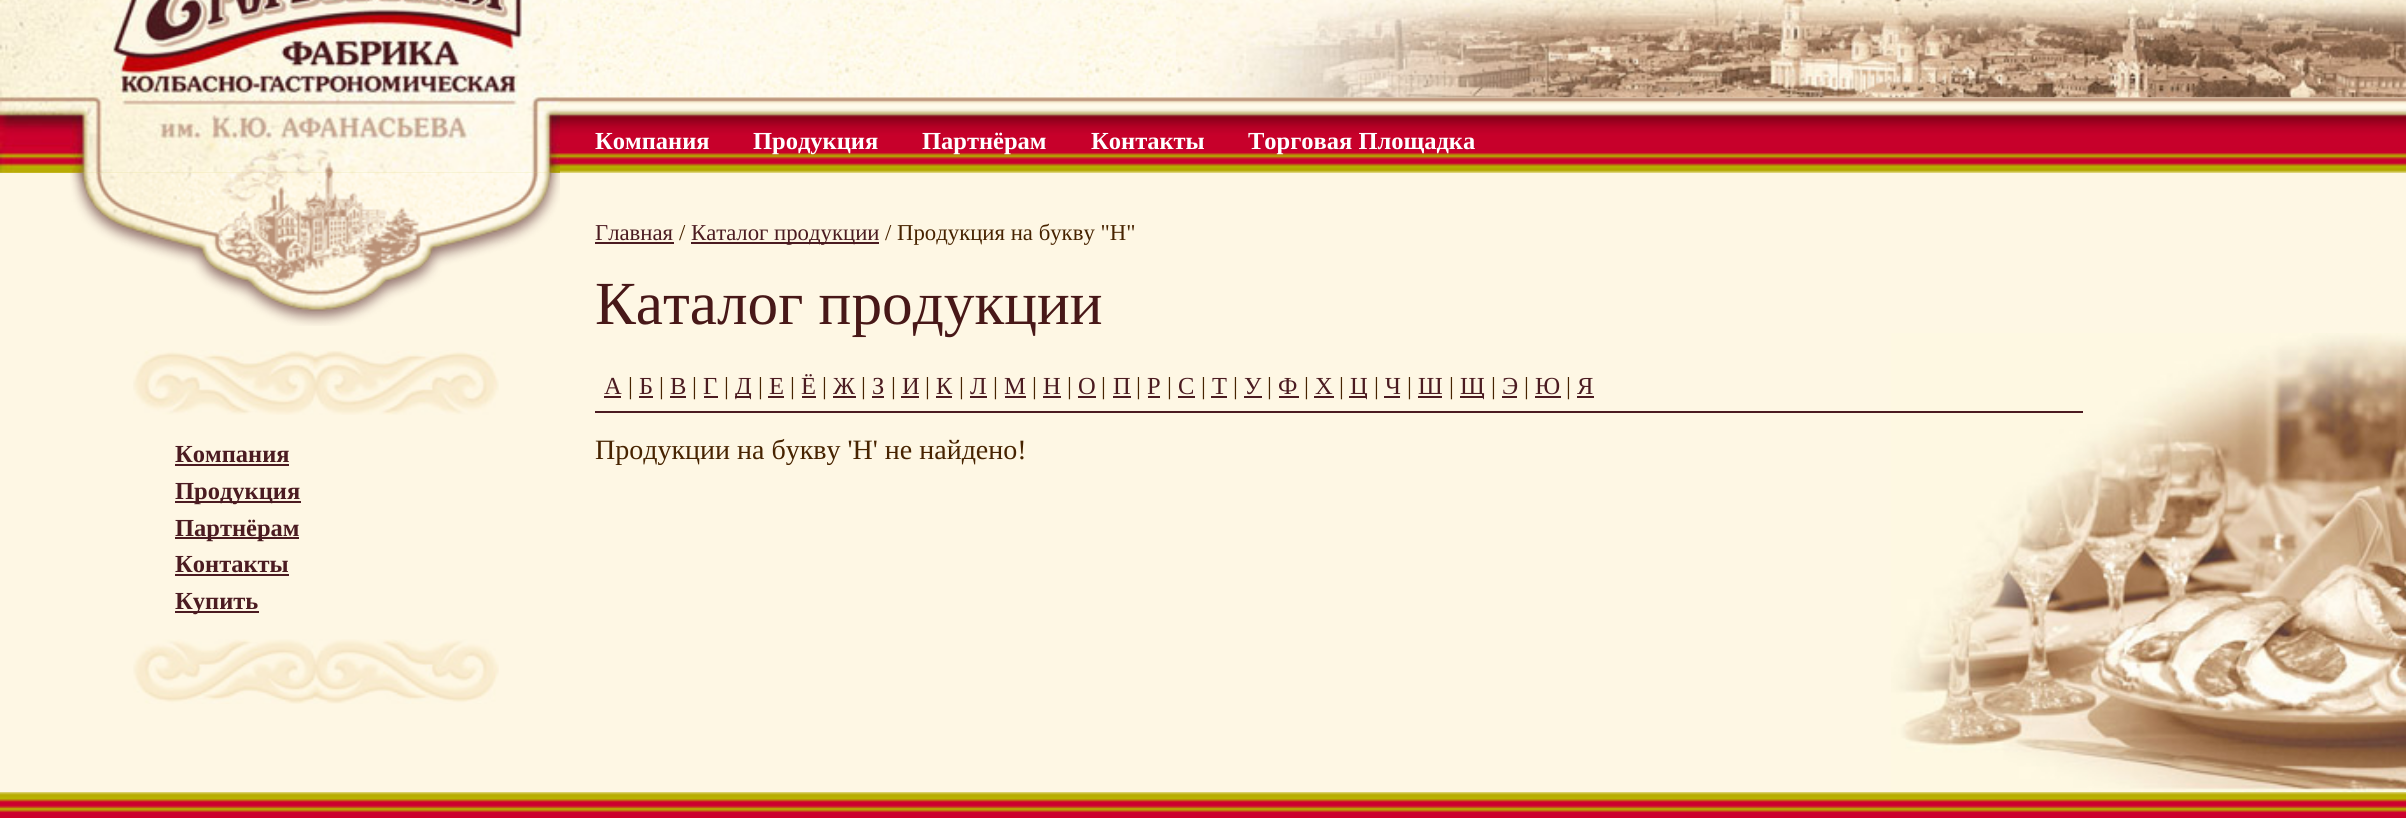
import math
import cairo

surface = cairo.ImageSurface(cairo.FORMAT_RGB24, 2406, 818)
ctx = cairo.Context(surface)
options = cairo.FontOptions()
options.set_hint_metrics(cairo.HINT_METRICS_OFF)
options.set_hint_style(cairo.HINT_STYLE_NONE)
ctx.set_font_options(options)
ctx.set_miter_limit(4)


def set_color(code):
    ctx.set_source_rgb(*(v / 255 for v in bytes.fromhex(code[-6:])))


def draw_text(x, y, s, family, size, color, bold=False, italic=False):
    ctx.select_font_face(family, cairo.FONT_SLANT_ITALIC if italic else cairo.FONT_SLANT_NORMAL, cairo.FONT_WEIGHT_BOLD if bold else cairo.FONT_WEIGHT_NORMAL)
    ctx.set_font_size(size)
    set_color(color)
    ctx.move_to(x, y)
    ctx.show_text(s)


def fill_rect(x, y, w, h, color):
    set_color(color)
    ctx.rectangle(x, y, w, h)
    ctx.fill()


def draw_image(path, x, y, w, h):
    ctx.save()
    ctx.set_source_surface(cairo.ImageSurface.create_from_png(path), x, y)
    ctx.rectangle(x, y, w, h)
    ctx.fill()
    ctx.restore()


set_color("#fef7e4")
ctx.paint()
draw_image("assets/img1.png", 560, 0, 1846, 98)
draw_image("assets/img2.png", 1891, 333, 515, 460)
draw_image("assets/img3.png", 1176, 0, 1230, 98)
draw_image("assets/img6.png", 0, 97, 2406, 76)
draw_image("assets/img4.png", 0, 0, 560, 173)
draw_image("assets/img5.png", 70, 172, 490, 154)
draw_text(595, 149, "Компания", "Liberation Serif", 24.5, "#ffffff", bold=True)
draw_text(753, 149, "Продукция", "Liberation Serif", 24.5, "#ffffff", bold=True)
draw_text(922, 149, "Партнёрам", "Liberation Serif", 24.5, "#ffffff", bold=True)
draw_text(1091, 149, "Контакты", "Liberation Serif", 24.5, "#ffffff", bold=True)
draw_text(1248, 149, "Торговая Площадка", "Liberation Serif", 24.5, "#ffffff", bold=True)
draw_text(595, 240, "Главная", "Liberation Serif", 22.75, "#4b1b21")
fill_rect(595, 242, 79, 2, "#4b1b21")
draw_text(679, 240, "/", "Liberation Serif", 22.75, "#472300")
fill_rect(691, 242, 188, 2, "#4b1b21")
draw_text(691, 240, "Каталог продукции", "Liberation Serif", 22.75, "#4b1b21")
draw_text(885, 240, "/ Продукция на букву \"Н\"", "Liberation Serif", 22.75, "#472300")
draw_text(595, 324, "Каталог продукции", "Liberation Serif", 61.25, "#481818")
fill_rect(595, 411, 1488, 2, "#4b1b21")
draw_text(604, 394, "А", "Liberation Serif", 24.5, "#4b1b21")
fill_rect(604, 396, 17, 2, "#4b1b21")
draw_text(628, 394, "|", "Liberation Serif", 24.5, "#472300")
draw_text(639, 394, "Б", "Liberation Serif", 24.5, "#4b1b21")
fill_rect(639, 396, 14, 2, "#4b1b21")
draw_text(659, 394, "|", "Liberation Serif", 24.5, "#472300")
draw_text(670, 394, "В", "Liberation Serif", 24.5, "#4b1b21")
fill_rect(670, 396, 16, 2, "#4b1b21")
draw_text(692, 394, "|", "Liberation Serif", 24.5, "#472300")
draw_text(703, 394, "Г", "Liberation Serif", 24.5, "#4b1b21")
fill_rect(704, 396, 14, 2, "#4b1b21")
draw_text(724, 394, "|", "Liberation Serif", 24.5, "#472300")
fill_rect(735, 396, 16, 2, "#4b1b21")
draw_text(735, 394, "Д", "Liberation Serif", 24.5, "#4b1b21")
draw_text(758, 394, "|", "Liberation Serif", 24.5, "#472300")
draw_text(769, 394, "Е", "Liberation Serif", 24.5, "#4b1b21")
fill_rect(768, 396, 16, 2, "#4b1b21")
draw_text(790, 394, "|", "Liberation Serif", 24.5, "#472300")
draw_text(801, 394, "Ё", "Liberation Serif", 24.5, "#4b1b21")
fill_rect(802, 396, 14, 2, "#4b1b21")
draw_text(822, 394, "|", "Liberation Serif", 24.5, "#472300")
draw_text(833, 394, "Ж", "Liberation Serif", 24.5, "#4b1b21")
fill_rect(833, 396, 23, 2, "#4b1b21")
draw_text(861, 394, "|", "Liberation Serif", 24.5, "#472300")
draw_text(872, 394, "З", "Liberation Serif", 24.5, "#4b1b21")
fill_rect(872, 396, 12, 2, "#4b1b21")
draw_text(891, 394, "|", "Liberation Serif", 24.5, "#472300")
draw_text(902, 394, "И", "Liberation Serif", 24.5, "#4b1b21")
fill_rect(901, 396, 18, 2, "#4b1b21")
draw_text(925, 394, "|", "Liberation Serif", 24.5, "#472300")
draw_text(936, 394, "К", "Liberation Serif", 24.5, "#4b1b21")
fill_rect(936, 396, 16, 2, "#4b1b21")
draw_text(959, 394, "|", "Liberation Serif", 24.5, "#472300")
draw_text(970, 394, "Л", "Liberation Serif", 24.5, "#4b1b21")
fill_rect(970, 396, 17, 2, "#4b1b21")
draw_text(993, 394, "|", "Liberation Serif", 24.5, "#472300")
draw_text(1004, 394, "М", "Liberation Serif", 24.5, "#4b1b21")
fill_rect(1005, 396, 21, 2, "#4b1b21")
draw_text(1032, 394, "|", "Liberation Serif", 24.5, "#472300")
draw_text(1043, 394, "Н", "Liberation Serif", 24.5, "#4b1b21")
fill_rect(1043, 396, 18, 2, "#4b1b21")
draw_text(1067, 394, "|", "Liberation Serif", 24.5, "#472300")
draw_text(1078, 394, "О", "Liberation Serif", 24.5, "#4b1b21")
fill_rect(1078, 396, 18, 2, "#4b1b21")
draw_text(1101, 394, "|", "Liberation Serif", 24.5, "#472300")
draw_text(1113, 394, "П", "Liberation Serif", 24.5, "#4b1b21")
fill_rect(1113, 396, 18, 2, "#4b1b21")
draw_text(1136, 394, "|", "Liberation Serif", 24.5, "#472300")
draw_text(1147, 394, "Р", "Liberation Serif", 24.5, "#4b1b21")
fill_rect(1148, 396, 12, 2, "#4b1b21")
draw_text(1167, 394, "|", "Liberation Serif", 24.5, "#472300")
draw_text(1178, 394, "С", "Liberation Serif", 24.5, "#4b1b21")
fill_rect(1178, 396, 17, 2, "#4b1b21")
draw_text(1201, 394, "|", "Liberation Serif", 24.5, "#472300")
draw_text(1212, 394, "Т", "Liberation Serif", 24.5, "#4b1b21")
fill_rect(1211, 396, 16, 2, "#4b1b21")
draw_text(1233, 394, "|", "Liberation Serif", 24.5, "#472300")
draw_text(1244, 394, "У", "Liberation Serif", 24.5, "#4b1b21")
fill_rect(1244, 396, 18, 2, "#4b1b21")
draw_text(1267, 394, "|", "Liberation Serif", 24.5, "#472300")
draw_text(1278, 394, "Ф", "Liberation Serif", 24.5, "#4b1b21")
fill_rect(1279, 396, 20, 2, "#4b1b21")
draw_text(1304, 394, "|", "Liberation Serif", 24.5, "#472300")
draw_text(1315, 394, "Х", "Liberation Serif", 24.5, "#4b1b21")
fill_rect(1314, 396, 20, 2, "#4b1b21")
draw_text(1339, 394, "|", "Liberation Serif", 24.5, "#472300")
fill_rect(1349, 396, 18, 2, "#4b1b21")
draw_text(1350, 394, "Ц", "Liberation Serif", 24.5, "#4b1b21")
draw_text(1374, 394, "|", "Liberation Serif", 24.5, "#472300")
draw_text(1385, 394, "Ч", "Liberation Serif", 24.5, "#4b1b21")
fill_rect(1384, 396, 16, 2, "#4b1b21")
draw_text(1407, 394, "|", "Liberation Serif", 24.5, "#472300")
draw_text(1418, 394, "Ш", "Liberation Serif", 24.5, "#4b1b21")
fill_rect(1418, 396, 24, 2, "#4b1b21")
draw_text(1449, 394, "|", "Liberation Serif", 24.5, "#472300")
fill_rect(1460, 396, 24, 2, "#4b1b21")
draw_text(1460, 394, "Щ", "Liberation Serif", 24.5, "#4b1b21")
draw_text(1491, 394, "|", "Liberation Serif", 24.5, "#472300")
draw_text(1502, 394, "Э", "Liberation Serif", 24.5, "#4b1b21")
fill_rect(1502, 396, 15, 2, "#4b1b21")
draw_text(1524, 394, "|", "Liberation Serif", 24.5, "#472300")
draw_text(1535, 394, "Ю", "Liberation Serif", 24.5, "#4b1b21")
fill_rect(1535, 396, 26, 2, "#4b1b21")
draw_text(1566, 394, "|", "Liberation Serif", 24.5, "#472300")
draw_text(1577, 394, "Я", "Liberation Serif", 24.5, "#4b1b21")
fill_rect(1577, 396, 17, 2, "#4b1b21")
draw_text(595, 459, "Продукции на букву 'Н' не найдено!", "Liberation Serif", 28, "#472300")
draw_image("assets/img7.png", 133, 350, 366, 65)
draw_image("assets/img8.png", 133, 639, 366, 65)
draw_text(175, 462, "Компания", "Liberation Serif", 24.5, "#4b1b21", bold=True)
fill_rect(175, 464, 114, 2, "#4b1b21")
fill_rect(175, 501, 126, 2, "#4b1b21")
draw_text(175, 499, "Продукция", "Liberation Serif", 24.5, "#4b1b21", bold=True)
fill_rect(175, 537, 124, 2, "#4b1b21")
draw_text(175, 536, "Партнёрам", "Liberation Serif", 24.5, "#4b1b21", bold=True)
draw_text(175, 572, "Контакты", "Liberation Serif", 24.5, "#4b1b21", bold=True)
fill_rect(175, 574, 114, 2, "#4b1b21")
fill_rect(175, 611, 84, 2, "#4b1b21")
draw_text(175, 609, "Купить", "Liberation Serif", 24.5, "#4b1b21", bold=True)
draw_image("assets/img9.png", 0, 792, 2406, 26)
surface.write_to_png("output.png")
